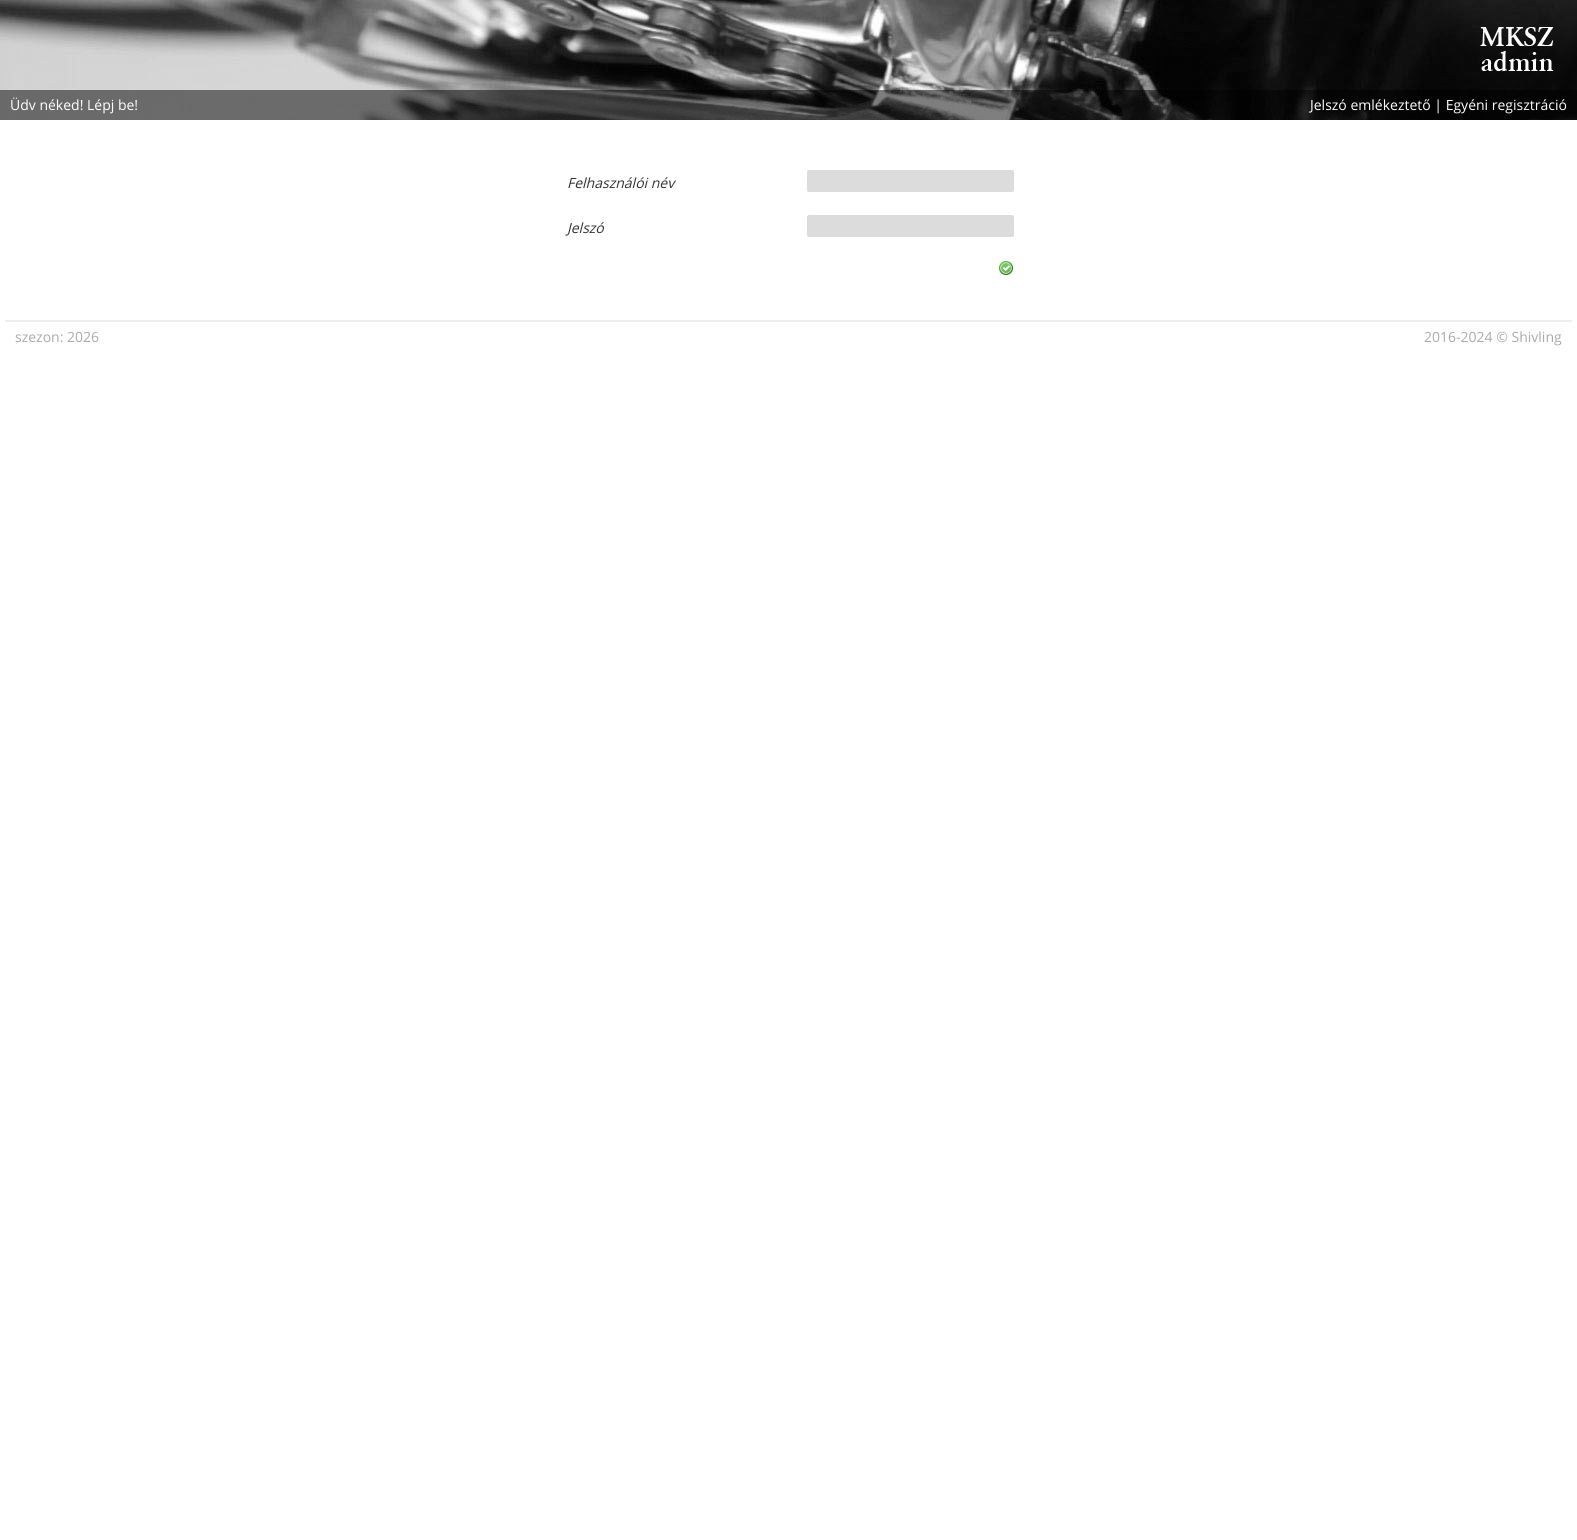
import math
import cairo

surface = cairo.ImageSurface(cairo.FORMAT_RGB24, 1577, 1540)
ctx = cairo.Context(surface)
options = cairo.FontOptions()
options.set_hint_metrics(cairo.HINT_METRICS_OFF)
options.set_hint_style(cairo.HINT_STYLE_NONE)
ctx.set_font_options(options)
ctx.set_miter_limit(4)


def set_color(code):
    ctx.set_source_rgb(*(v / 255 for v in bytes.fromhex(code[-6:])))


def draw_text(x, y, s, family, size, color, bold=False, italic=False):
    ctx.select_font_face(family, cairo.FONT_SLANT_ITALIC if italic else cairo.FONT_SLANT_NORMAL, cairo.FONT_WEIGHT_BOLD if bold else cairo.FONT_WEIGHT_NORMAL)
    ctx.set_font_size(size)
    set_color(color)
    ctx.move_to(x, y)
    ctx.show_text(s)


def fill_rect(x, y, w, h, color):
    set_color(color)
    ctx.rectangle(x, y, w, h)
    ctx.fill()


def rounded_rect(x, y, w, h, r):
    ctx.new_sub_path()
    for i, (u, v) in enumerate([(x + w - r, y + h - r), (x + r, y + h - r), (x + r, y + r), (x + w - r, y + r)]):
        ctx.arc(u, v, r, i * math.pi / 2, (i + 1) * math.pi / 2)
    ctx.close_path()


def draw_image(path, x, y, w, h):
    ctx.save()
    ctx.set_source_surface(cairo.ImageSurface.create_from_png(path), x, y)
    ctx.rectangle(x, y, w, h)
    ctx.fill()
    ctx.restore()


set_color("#ffffff")
ctx.paint()
draw_image("assets/img1.png", 0, 0, 1577, 120)
draw_image("assets/img2.png", 1480, 27, 74, 45)
ctx.set_source_rgba(0, 0, 0, 0.5)
ctx.rectangle(0, 90, 1577, 30)
ctx.fill()
draw_text(10, 110, "Üdv néked! Lépj be!", "Open Sans", 14, "#ffffff")
draw_text(1310, 110, "Jelszó emlékeztető | Egyéni regisztráció", "Open Sans", 14, "#ffffff")
draw_text(567, 188, "Felhasználói név", "Open Sans", 14, "#333333", italic=True)
set_color("#dcdcdc")
rounded_rect(807, 170, 207, 22, 2)
ctx.fill()
draw_text(567, 233, "Jelszó", "Open Sans", 14, "#333333", italic=True)
set_color("#dcdcdc")
rounded_rect(807, 215, 207, 22, 2)
ctx.fill()
draw_image("assets/img3.png", 999, 261, 14, 14)
fill_rect(5, 320, 1567, 2, "#eeeeee")
draw_text(15, 342, "szezon: 2026", "Open Sans", 14, "#aaaaaa")
draw_text(1424, 342, "2016-2024 © Shivling", "Open Sans", 14, "#aaaaaa")
surface.write_to_png("output.png")
